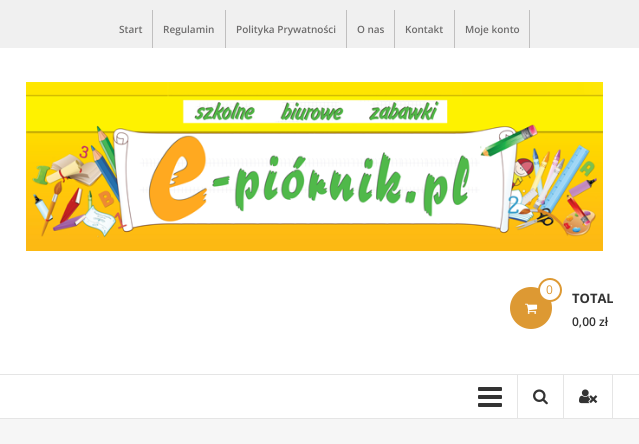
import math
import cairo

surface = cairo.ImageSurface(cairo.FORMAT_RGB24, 639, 444)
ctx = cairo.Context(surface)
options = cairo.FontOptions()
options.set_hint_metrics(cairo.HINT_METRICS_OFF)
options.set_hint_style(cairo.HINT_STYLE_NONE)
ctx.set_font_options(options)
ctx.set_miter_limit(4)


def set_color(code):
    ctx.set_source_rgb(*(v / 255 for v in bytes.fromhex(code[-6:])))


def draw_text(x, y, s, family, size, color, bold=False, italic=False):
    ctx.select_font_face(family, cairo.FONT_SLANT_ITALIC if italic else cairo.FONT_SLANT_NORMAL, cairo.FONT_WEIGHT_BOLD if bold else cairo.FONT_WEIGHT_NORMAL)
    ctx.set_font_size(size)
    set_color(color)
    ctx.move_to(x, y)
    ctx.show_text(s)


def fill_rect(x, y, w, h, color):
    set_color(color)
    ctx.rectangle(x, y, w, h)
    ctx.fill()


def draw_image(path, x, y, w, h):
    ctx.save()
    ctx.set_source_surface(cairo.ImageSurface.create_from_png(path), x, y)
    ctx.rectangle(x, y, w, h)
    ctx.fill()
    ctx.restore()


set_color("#ffffff")
ctx.paint()
fill_rect(0, 0, 639, 48, "#f0f0f0")
fill_rect(152, 10, 1, 38, "#c0bfbf")
draw_text(119, 33, "Start", "Open Sans SemiBold", 10, "#6d6c6c")
fill_rect(225, 10, 1, 38, "#c0bfbf")
draw_text(163, 33, "Regulamin", "Open Sans SemiBold", 10, "#6d6c6c")
fill_rect(346, 10, 1, 38, "#c0bfbf")
draw_text(236, 33, "Polityka Prywatności", "Open Sans SemiBold", 10, "#6d6c6c")
fill_rect(394, 10, 1, 38, "#c0bfbf")
draw_text(357, 33, "O nas", "Open Sans SemiBold", 10, "#6d6c6c")
fill_rect(454, 10, 1, 38, "#c0bfbf")
draw_text(405, 33, "Kontakt", "Open Sans SemiBold", 10, "#6d6c6c")
fill_rect(529, 10, 1, 38, "#c0bfbf")
draw_text(465, 33, "Moje konto", "Open Sans SemiBold", 10, "#6d6c6c")
draw_image("assets/img1.png", 26, 82, 577, 169)
set_color("#dd9933")
ctx.arc(531, 308, 21, 0, 2 * math.pi)
ctx.fill()
set_color("#ffffff")
ctx.arc(550, 290, 11, 0, 2 * math.pi)
ctx.fill_preserve()
set_color("#dd9933")
ctx.stroke()
draw_text(546, 294, "0", "Open Sans", 12, "#dd9933")
draw_image("assets/img2.png", 525, 303, 13, 11)
draw_text(572, 303, "TOTAL", "Open Sans", 13, "#333333", bold=True)
draw_text(572, 326, "0,00 zł", "Open Sans SemiBold", 12, "#333333")
fill_rect(0, 374, 639, 1, "#e5e5e5")
fill_rect(0, 418, 639, 1, "#e5e5e5")
draw_image("assets/img3.png", 478, 387, 24, 20)
fill_rect(517, 375, 1, 43, "#e5e5e5")
draw_image("assets/img4.png", 533, 389, 15, 16)
fill_rect(612, 375, 1, 43, "#e5e5e5")
fill_rect(563, 375, 1, 43, "#e5e5e5")
draw_image("assets/img5.png", 579, 389, 19, 15)
fill_rect(0, 419, 639, 25, "#f6f6f6")
surface.write_to_png("output.png")
